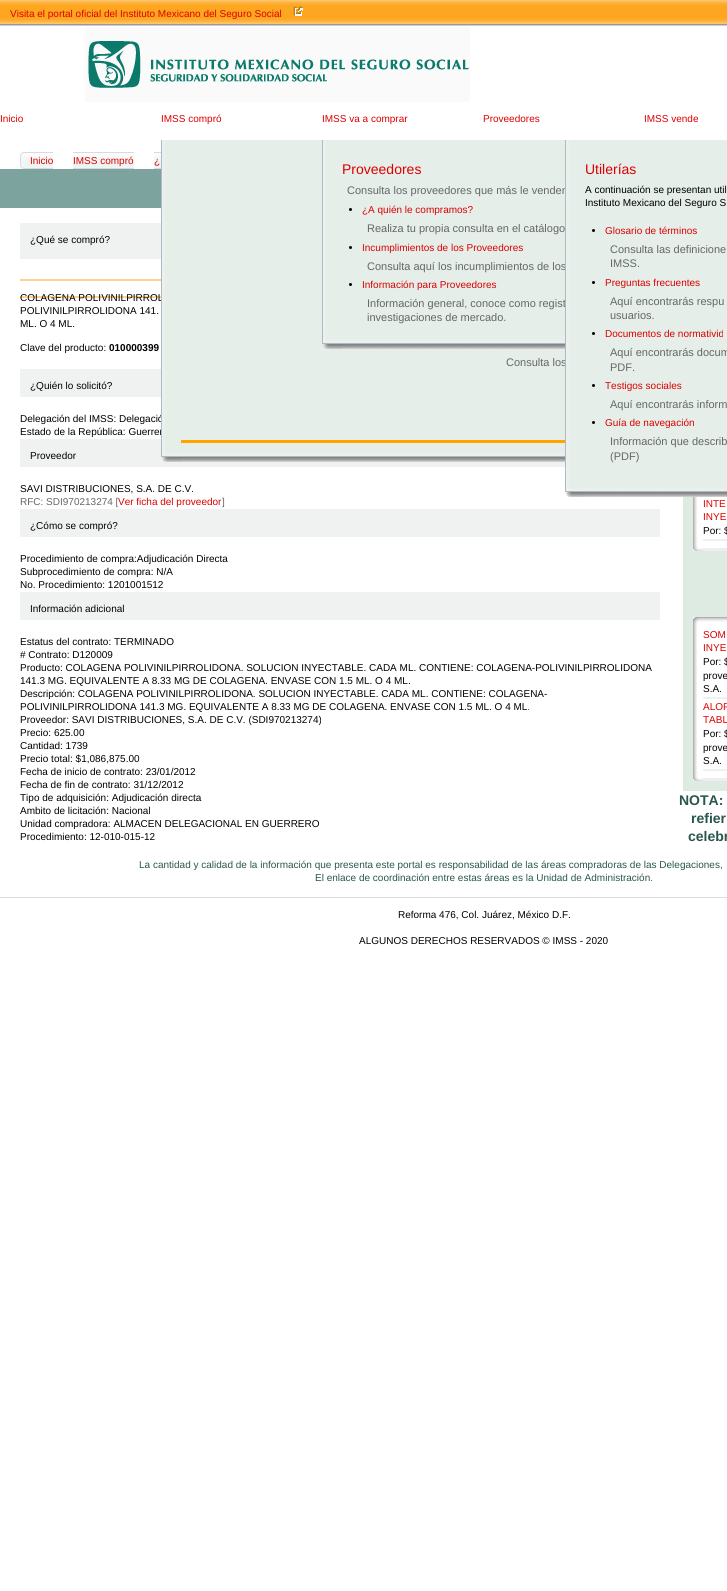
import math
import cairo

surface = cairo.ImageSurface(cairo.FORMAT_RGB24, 727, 1591)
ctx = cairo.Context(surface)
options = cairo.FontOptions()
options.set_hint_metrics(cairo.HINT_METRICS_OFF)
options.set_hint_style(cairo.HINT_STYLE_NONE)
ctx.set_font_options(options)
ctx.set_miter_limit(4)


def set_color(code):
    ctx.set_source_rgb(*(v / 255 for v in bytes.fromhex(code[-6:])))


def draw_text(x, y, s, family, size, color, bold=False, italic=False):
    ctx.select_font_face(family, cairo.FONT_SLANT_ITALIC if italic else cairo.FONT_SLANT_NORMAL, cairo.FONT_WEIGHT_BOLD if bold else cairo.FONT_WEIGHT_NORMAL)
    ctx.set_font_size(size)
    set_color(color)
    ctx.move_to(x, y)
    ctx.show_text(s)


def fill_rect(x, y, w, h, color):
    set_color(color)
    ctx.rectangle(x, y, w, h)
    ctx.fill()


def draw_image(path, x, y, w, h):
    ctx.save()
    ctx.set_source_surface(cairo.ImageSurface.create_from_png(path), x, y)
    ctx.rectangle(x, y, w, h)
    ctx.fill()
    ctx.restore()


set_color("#ffffff")
ctx.paint()
draw_image("assets/img1.png", 0, 0, 727, 26)
draw_text(10, 17, "Visita el portal oficial del Instituto Mexicano del Seguro Social", "Liberation Sans", 10, "#dd0000")
draw_image("assets/img2.png", 293, 6, 11, 11)
draw_image("assets/img3.png", 85, 27, 385, 75)
draw_text(0, 122, "Inicio", "Liberation Sans", 10, "#dd0000")
draw_text(161, 122, "IMSS compró", "Liberation Sans", 10, "#dd0000")
draw_text(322, 122, "IMSS va a comprar", "Liberation Sans", 10, "#dd0000")
draw_text(483, 122, "Proveedores", "Liberation Sans", 10, "#dd0000")
draw_text(644, 122, "IMSS vende", "Liberation Sans", 10, "#dd0000")
fill_rect(20, 439, 545, 28, "#f0f2f1")
fill_rect(181, 140, 384, 300, "#e5eee9")
draw_image("assets/img4.png", 322, 140, 4, 190)
draw_text(342, 174, "Proveedores", "Liberation Sans", 14, "#dd0000")
draw_text(347, 194, "Consulta los proveedores que más le venden", "Liberation Sans", 11, "#666666")
set_color("#000000")
ctx.new_path()
ctx.arc(350.5, 209.5, 1.5, 0, 2 * math.pi)
ctx.fill()
draw_text(362, 213, "¿A quién le compramos?", "Liberation Sans", 10, "#dd0000")
draw_text(367, 232, "Realiza tu propia consulta en el catálogo", "Liberation Sans", 11, "#666666")
set_color("#000000")
ctx.new_path()
ctx.arc(350.5, 247.5, 1.5, 0, 2 * math.pi)
ctx.fill()
draw_text(362, 251, "Incumplimientos de los Proveedores", "Liberation Sans", 10, "#dd0000")
draw_text(367, 270, "Consulta aquí los incumplimientos de los", "Liberation Sans", 11, "#666666")
set_color("#000000")
ctx.new_path()
ctx.arc(350.5, 284.5, 1.5, 0, 2 * math.pi)
ctx.fill()
draw_text(362, 288, "Información para Proveedores", "Liberation Sans", 10, "#dd0000")
draw_text(367, 307, "Información general, conoce como regist", "Liberation Sans", 11, "#666666")
draw_text(367, 321, "investigaciones de mercado.", "Liberation Sans", 11, "#666666")
draw_image("assets/img5.png", 322, 330, 20, 19)
draw_image("assets/img6.png", 342, 330, 223, 19)
draw_text(506, 366, "Consulta los", "Liberation Sans", 11, "#666666")
draw_image("assets/img7.png", 565, 140, 20, 338)
fill_rect(585, 140, 142, 338, "#e5eee9")
draw_text(585, 174, "Utilerías", "Liberation Sans", 14, "#dd0000")
draw_text(585, 193, "A continuación se presentan util", "Liberation Sans", 10, "#000000")
draw_text(585, 206, "Instituto Mexicano del Seguro S", "Liberation Sans", 10, "#000000")
ctx.new_path()
ctx.arc(593.5, 230.5, 1.5, 0, 2 * math.pi)
ctx.fill()
draw_text(605, 234, "Glosario de términos", "Liberation Sans", 10, "#dd0000")
draw_text(610, 253, "Consulta las definicione", "Liberation Sans", 11, "#666666")
draw_text(610, 267, "IMSS.", "Liberation Sans", 11, "#666666")
set_color("#000000")
ctx.new_path()
ctx.arc(593.5, 282.5, 1.5, 0, 2 * math.pi)
ctx.fill()
draw_text(605, 286, "Preguntas frecuentes", "Liberation Sans", 10, "#dd0000")
draw_text(610, 305, "Aquí encontrarás respu", "Liberation Sans", 11, "#666666")
draw_text(610, 319, "usuarios.", "Liberation Sans", 11, "#666666")
set_color("#000000")
ctx.new_path()
ctx.arc(593.5, 333.5, 1.5, 0, 2 * math.pi)
ctx.fill()
draw_text(605, 337, "Documentos de normativid", "Liberation Sans", 10, "#dd0000")
draw_text(610, 356, "Aquí encontrarás docum", "Liberation Sans", 11, "#666666")
draw_text(610, 371, "PDF.", "Liberation Sans", 11, "#666666")
set_color("#000000")
ctx.new_path()
ctx.arc(593.5, 385.5, 1.5, 0, 2 * math.pi)
ctx.fill()
draw_text(605, 389, "Testigos sociales", "Liberation Sans", 10, "#dd0000")
draw_text(610, 408, "Aquí encontrarás inform", "Liberation Sans", 11, "#666666")
set_color("#000000")
ctx.new_path()
ctx.arc(593.5, 422.5, 1.5, 0, 2 * math.pi)
ctx.fill()
draw_text(605, 426, "Guía de navegación", "Liberation Sans", 10, "#dd0000")
draw_text(610, 445, "Información que describ", "Liberation Sans", 11, "#666666")
draw_text(610, 460, "(PDF)", "Liberation Sans", 11, "#666666")
draw_image("assets/img8.png", 565, 478, 20, 19)
draw_image("assets/img9.png", 585, 478, 142, 19)
fill_rect(20, 296, 141, 2, "#fed190")
draw_text(20, 301, "COLAGENA POLIVINILPIRROL", "Liberation Sans", 10, "#000000")
draw_text(20, 422, "Delegación del IMSS: Delegació", "Liberation Sans", 10, "#000000")
draw_text(20, 435, "Estado de la República: Guerrer", "Liberation Sans", 10, "#000000")
draw_image("assets/img10.png", 161, 140, 20, 303)
fill_rect(181, 440, 384, 3, "#ffa500")
draw_image("assets/img11.png", 161, 443, 20, 19)
draw_image("assets/img12.png", 181, 443, 384, 19)
draw_image("assets/img13.png", 20, 152, 10, 17)
draw_image("assets/img14.png", 30, 152, 23, 17)
draw_text(30, 164, "Inicio", "Liberation Sans", 10, "#dd0000")
draw_image("assets/img15.png", 73, 152, 61, 17)
draw_text(73, 164, "IMSS compró", "Liberation Sans", 10, "#dd0000")
draw_image("assets/img16.png", 154, 152, 7, 17)
draw_text(154, 164, "¿", "Liberation Sans", 10, "#dd0000")
fill_rect(0, 169, 161, 39, "#7ca39e")
fill_rect(20, 223, 141, 36, "#f0f2f1")
draw_text(30, 243, "¿Qué se compró?", "Liberation Sans", 10, "#000000")
fill_rect(20, 279, 141, 2, "#fed190")
draw_text(20, 314, "POLIVINILPIRROLIDONA 141.", "Liberation Sans", 10, "#000000")
draw_text(20, 327, "ML. O 4 ML.", "Liberation Sans", 10, "#000000")
draw_text(20, 351, "Clave del producto:", "Liberation Sans", 10, "#000000")
draw_text(109, 351, "010000399", "Liberation Sans", 10, "#000000", bold=True)
fill_rect(20, 369, 141, 28, "#f0f2f1")
draw_text(30, 389, "¿Quién lo solicitó?", "Liberation Sans", 10, "#000000")
draw_text(30, 459, "Proveedor", "Liberation Sans", 10, "#000000")
draw_text(20, 492, "SAVI DISTRIBUCIONES, S.A. DE C.V.", "Liberation Sans", 10, "#000000")
draw_text(20, 505, "RFC: SDI970213274 [", "Liberation Sans", 10, "#666666")
draw_text(118, 505, "Ver ficha del proveedor", "Liberation Sans", 10, "#dd0000")
draw_text(222, 505, "]", "Liberation Sans", 10, "#666666")
fill_rect(20, 509, 640, 28, "#f0f2f1")
draw_text(30, 529, "¿Cómo se compró?", "Liberation Sans", 10, "#000000")
draw_text(20, 562, "Procedimiento de compra:Adjudicación Directa", "Liberation Sans", 10, "#000000")
draw_text(20, 575, "Subprocedimiento de compra: N/A", "Liberation Sans", 10, "#000000")
draw_text(20, 588, "No. Procedimiento: 1201001512", "Liberation Sans", 10, "#000000")
fill_rect(20, 592, 640, 28, "#f0f2f1")
draw_text(30, 612, "Información adicional", "Liberation Sans", 10, "#000000")
draw_text(20, 645, "Estatus del contrato: TERMINADO", "Liberation Sans", 10, "#000000")
draw_text(20, 658, "# Contrato: D120009", "Liberation Sans", 10, "#000000")
draw_text(20, 671, "Producto: COLAGENA POLIVINILPIRROLIDONA. SOLUCION INYECTABLE. CADA ML. CONTIENE: COLAGENA-POLIVINILPIRROLIDONA", "Liberation Sans", 10, "#000000")
draw_text(20, 684, "141.3 MG. EQUIVALENTE A 8.33 MG DE COLAGENA. ENVASE CON 1.5 ML. O 4 ML.", "Liberation Sans", 10, "#000000")
draw_text(20, 697, "Descripción: COLAGENA POLIVINILPIRROLIDONA. SOLUCION INYECTABLE. CADA ML. CONTIENE: COLAGENA-", "Liberation Sans", 10, "#000000")
draw_text(20, 710, "POLIVINILPIRROLIDONA 141.3 MG. EQUIVALENTE A 8.33 MG DE COLAGENA. ENVASE CON 1.5 ML. O 4 ML.", "Liberation Sans", 10, "#000000")
draw_text(20, 723, "Proveedor: SAVI DISTRIBUCIONES, S.A. DE C.V. (SDI970213274)", "Liberation Sans", 10, "#000000")
draw_text(20, 736, "Precio: 625.00", "Liberation Sans", 10, "#000000")
draw_text(20, 749, "Cantidad: 1739", "Liberation Sans", 10, "#000000")
draw_text(20, 762, "Precio total: $1,086,875.00", "Liberation Sans", 10, "#000000")
draw_text(20, 775, "Fecha de inicio de contrato: 23/01/2012", "Liberation Sans", 10, "#000000")
draw_text(20, 788, "Fecha de fin de contrato: 31/12/2012", "Liberation Sans", 10, "#000000")
draw_text(20, 801, "Tipo de adquisición: Adjudicación directa", "Liberation Sans", 10, "#000000")
draw_text(20, 814, "Ambito de licitación: Nacional", "Liberation Sans", 10, "#000000")
draw_text(20, 827, "Unidad compradora: ALMACEN DELEGACIONAL EN GUERRERO", "Liberation Sans", 10, "#000000")
draw_text(20, 840, "Procedimiento: 12-010-015-12", "Liberation Sans", 10, "#000000")
fill_rect(683, 497, 44, 294, "#deebe2")
fill_rect(697, 497, 30, 51, "#ffffff")
draw_image("assets/img17.png", 693, 497, 4, 44)
draw_text(703, 507, "INTE", "Liberation Sans", 10, "#dd0000")
draw_text(703, 520, "INYE", "Liberation Sans", 10, "#dd0000")
draw_text(703, 534, "Por: $", "Liberation Sans", 10, "#000000")
fill_rect(703, 539, 24, 2, "#eff1f1")
draw_image("assets/img18.png", 693, 541, 10, 10)
fill_rect(703, 548, 24, 3, "#eeeeee")
fill_rect(697, 622, 30, 156, "#ffffff")
draw_image("assets/img19.png", 693, 617, 10, 10)
draw_image("assets/img20.png", 703, 617, 24, 5)
draw_image("assets/img21.png", 693, 627, 4, 72)
draw_text(703, 638, "SOM", "Liberation Sans", 10, "#dd0000")
draw_text(703, 651, "INYE", "Liberation Sans", 10, "#dd0000")
draw_text(703, 665, "Por: $", "Liberation Sans", 10, "#000000")
draw_text(703, 679, "prove", "Liberation Sans", 10, "#000000")
draw_text(703, 692, "S.A.", "Liberation Sans", 10, "#000000")
fill_rect(703, 697, 24, 2, "#eff1f1")
draw_image("assets/img21.png", 693, 699, 4, 72)
draw_text(703, 710, "ALOP", "Liberation Sans", 10, "#dd0000")
draw_text(703, 723, "TABL", "Liberation Sans", 10, "#dd0000")
draw_text(703, 737, "Por: $", "Liberation Sans", 10, "#000000")
draw_text(703, 751, "prove", "Liberation Sans", 10, "#000000")
draw_text(703, 764, "S.A.", "Liberation Sans", 10, "#000000")
fill_rect(703, 769, 24, 2, "#eff1f1")
draw_image("assets/img18.png", 693, 771, 10, 10)
fill_rect(703, 778, 24, 3, "#eeeeee")
draw_text(679, 805, "NOTA:", "Liberation Sans", 14, "#28574d", bold=True)
draw_text(691, 823, "refier", "Liberation Sans", 14, "#28574d", bold=True)
draw_text(688, 841, "celebr", "Liberation Sans", 14, "#28574d", bold=True)
draw_text(139, 868, "La cantidad y calidad de la información que presenta este portal es responsabilidad de las áreas compradoras de las Delegaciones,", "Liberation Sans", 10, "#28574d")
draw_text(315, 881, "El enlace de coordinación entre estas áreas es la Unidad de Administración.", "Liberation Sans", 10, "#28574d")
fill_rect(0, 897, 727, 1, "#dddddf")
draw_text(398, 918, "Reforma 476, Col. Juárez, México D.F.", "Liberation Sans", 10, "#000000")
draw_text(359, 944, "ALGUNOS DERECHOS RESERVADOS © IMSS - 2020", "Liberation Sans", 10, "#000000")
surface.write_to_png("output.png")
